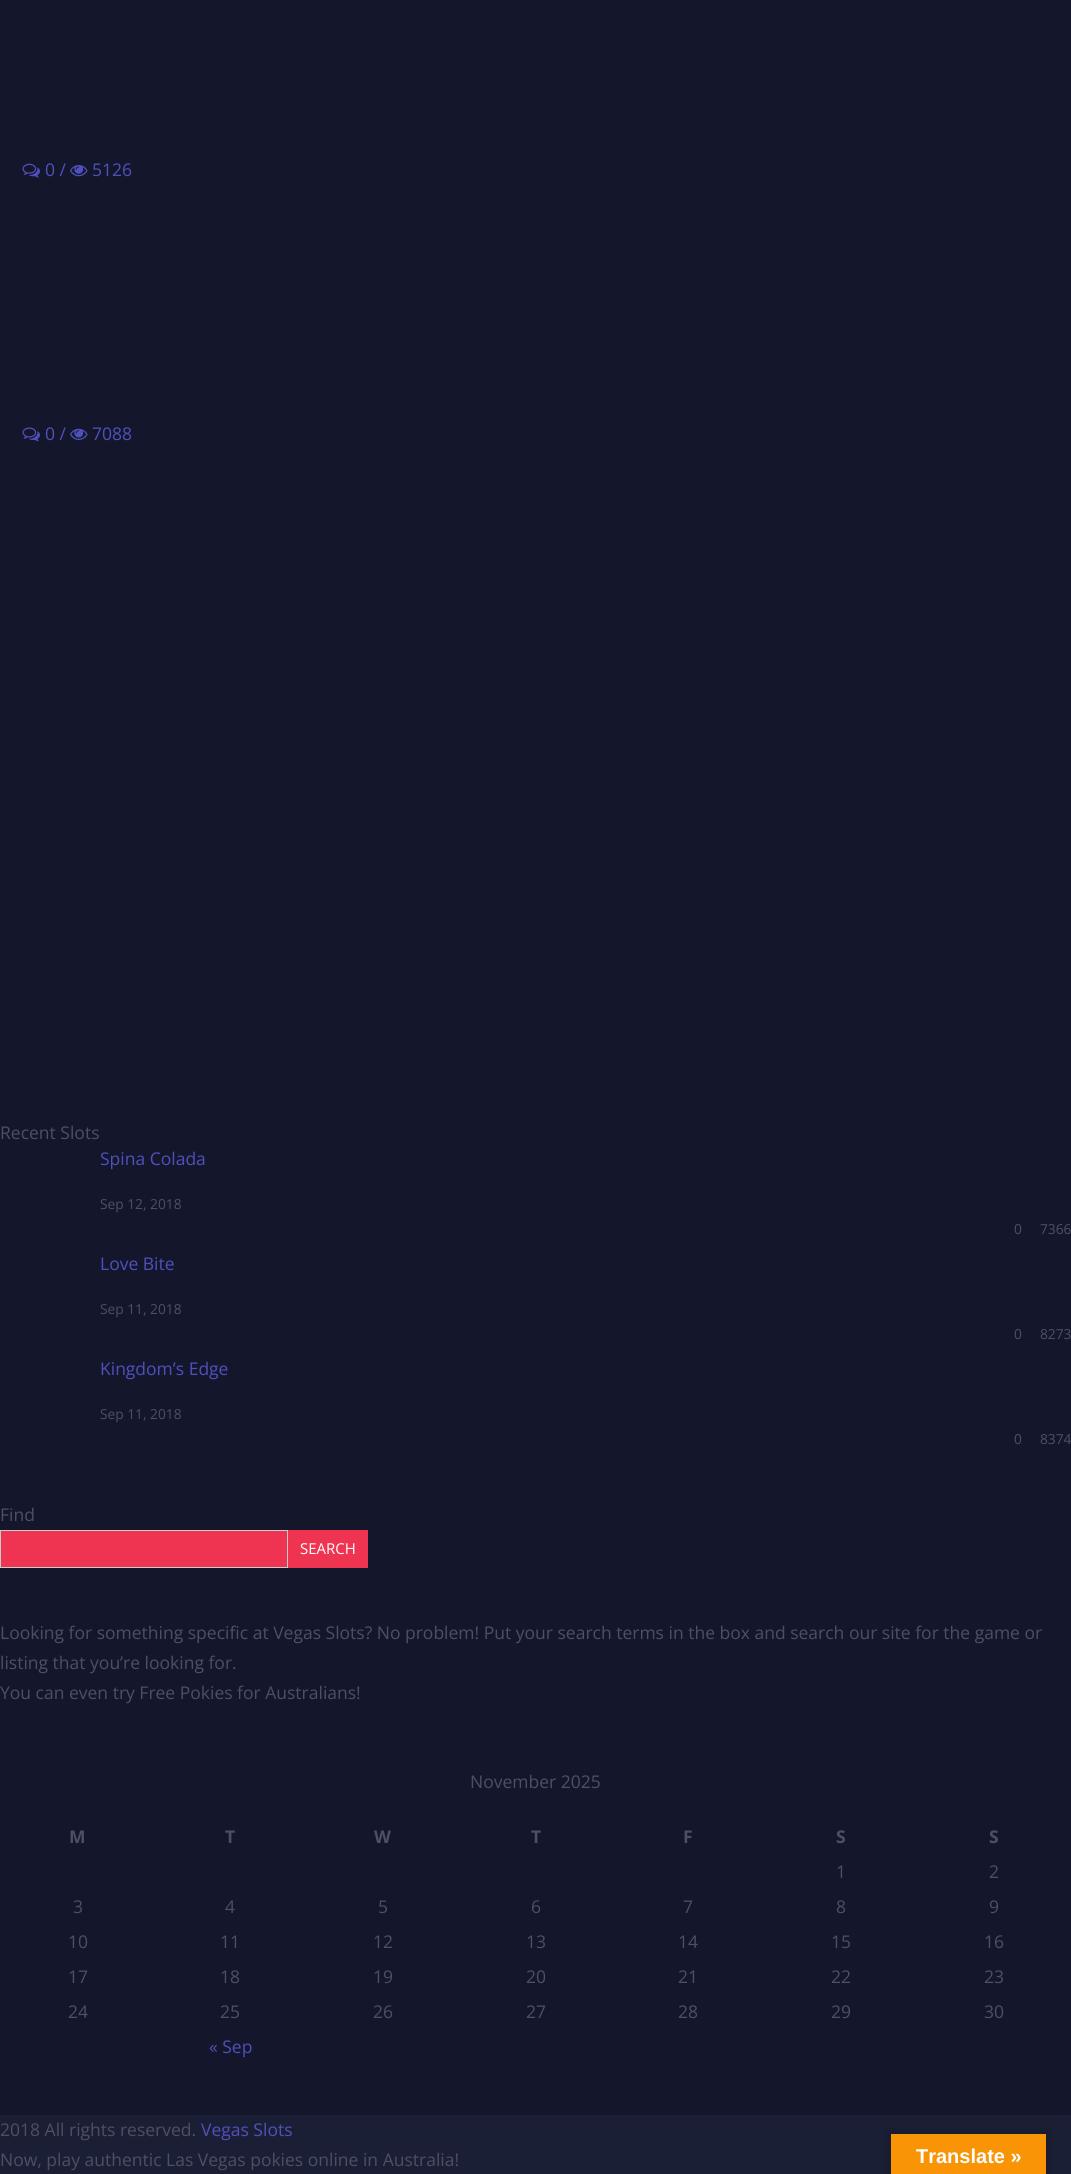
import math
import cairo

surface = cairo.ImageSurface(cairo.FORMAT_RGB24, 1071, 2174)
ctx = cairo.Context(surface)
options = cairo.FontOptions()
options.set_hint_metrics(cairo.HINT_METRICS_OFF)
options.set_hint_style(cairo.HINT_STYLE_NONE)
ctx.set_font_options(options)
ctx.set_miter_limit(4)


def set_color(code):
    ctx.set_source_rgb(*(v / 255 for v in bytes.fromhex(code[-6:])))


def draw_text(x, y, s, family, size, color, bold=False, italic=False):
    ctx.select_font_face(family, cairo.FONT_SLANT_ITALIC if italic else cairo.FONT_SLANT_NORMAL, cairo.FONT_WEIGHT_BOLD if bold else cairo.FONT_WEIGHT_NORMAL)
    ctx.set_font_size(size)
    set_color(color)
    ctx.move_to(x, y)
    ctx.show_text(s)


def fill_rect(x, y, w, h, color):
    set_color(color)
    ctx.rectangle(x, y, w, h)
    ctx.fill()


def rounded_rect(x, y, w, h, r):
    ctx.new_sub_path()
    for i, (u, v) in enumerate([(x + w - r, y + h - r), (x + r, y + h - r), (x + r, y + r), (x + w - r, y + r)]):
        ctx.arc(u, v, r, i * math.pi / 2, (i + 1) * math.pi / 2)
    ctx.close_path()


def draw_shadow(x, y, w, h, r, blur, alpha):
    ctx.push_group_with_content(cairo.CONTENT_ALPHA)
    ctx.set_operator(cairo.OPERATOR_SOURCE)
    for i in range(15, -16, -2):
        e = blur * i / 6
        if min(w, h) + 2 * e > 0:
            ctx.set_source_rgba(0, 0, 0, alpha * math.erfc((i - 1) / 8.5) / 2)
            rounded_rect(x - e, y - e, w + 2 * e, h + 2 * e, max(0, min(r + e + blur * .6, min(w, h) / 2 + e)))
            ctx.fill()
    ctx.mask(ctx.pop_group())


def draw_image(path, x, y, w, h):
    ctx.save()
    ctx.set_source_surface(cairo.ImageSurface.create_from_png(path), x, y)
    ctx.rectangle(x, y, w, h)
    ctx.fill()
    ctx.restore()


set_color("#14172b")
ctx.paint()
draw_image("assets/img1.png", 22, 163, 18, 15)
draw_text(45, 176, "0 /", "Open Sans", 17.5, "#4f50bc")
draw_image("assets/img2.png", 70, 165, 18, 12)
draw_text(92, 176, "5126", "Open Sans", 17.5, "#4f50bc")
draw_image("assets/img3.png", 22, 427, 18, 15)
draw_text(45, 440, "0 /", "Open Sans", 17.5, "#4f50bc")
draw_image("assets/img4.png", 70, 428, 18, 12)
draw_text(92, 440, "7088", "Open Sans", 17.5, "#4f50bc")
draw_text(0, 1139, "Recent Slots", "Open Sans", 17.5, "#4d4f63")
draw_text(100, 1165, "Spina Colada", "Open Sans", 17.5, "#4f50bc")
draw_text(100, 1209, "Sep 12, 2018", "Open Sans", 13.75, "#4d4f63")
draw_text(1014, 1234, "0", "Open Sans", 13.75, "#4d4f63")
draw_text(1040, 1234, "7366", "Open Sans", 13.75, "#4d4f63")
draw_text(100, 1270, "Love Bite", "Open Sans", 17.5, "#4f50bc")
draw_text(100, 1314, "Sep 11, 2018", "Open Sans", 13.75, "#4d4f63")
draw_text(1014, 1339, "0", "Open Sans", 13.75, "#4d4f63")
draw_text(1040, 1339, "8273", "Open Sans", 13.75, "#4d4f63")
draw_text(100, 1375, "Kingdom’s Edge", "Open Sans", 17.5, "#4f50bc")
draw_text(100, 1419, "Sep 11, 2018", "Open Sans", 13.75, "#4d4f63")
draw_text(1014, 1444, "0", "Open Sans", 13.75, "#4d4f63")
draw_text(1040, 1444, "8374", "Open Sans", 13.75, "#4d4f63")
draw_text(0, 1521, "Find", "Open Sans", 17.5, "#4d4f63")
set_color("#ef3451")
ctx.rectangle(0.5, 1530.5, 287, 37)
ctx.fill_preserve()
set_color("#cccccc")
ctx.set_line_width(1)
ctx.stroke()
fill_rect(288, 1530, 80, 38, "#ef3451")
draw_text(300, 1554, "SEARCH", "Open Sans", 15, "#ffffff")
draw_text(0, 1639, "Looking for something specific at Vegas Slots? No problem! Put your search terms in the box and search our site for the game or", "Open Sans", 17.5, "#4d4f63")
draw_text(0, 1669, "listing that you’re looking for.", "Open Sans", 17.5, "#4d4f63")
draw_text(0, 1699, "You can even try Free Pokies for Australians!", "Open Sans", 17.5, "#4d4f63")
draw_text(470, 1788, "November 2025", "Open Sans", 17.5, "#4d4f63")
draw_text(69, 1843, "M", "Open Sans", 17.5, "#4d4f63", bold=True)
draw_text(225, 1843, "T", "Open Sans", 17.5, "#4d4f63", bold=True)
draw_text(374, 1843, "W", "Open Sans", 17.5, "#4d4f63", bold=True)
draw_text(531, 1843, "T", "Open Sans", 17.5, "#4d4f63", bold=True)
draw_text(683, 1843, "F", "Open Sans", 17.5, "#4d4f63", bold=True)
draw_text(836, 1843, "S", "Open Sans", 17.5, "#4d4f63", bold=True)
draw_text(989, 1843, "S", "Open Sans", 17.5, "#4d4f63", bold=True)
draw_text(836, 1878, "1", "Open Sans", 17.5, "#4d4f63")
draw_text(989, 1878, "2", "Open Sans", 17.5, "#4d4f63")
draw_text(73, 1913, "3", "Open Sans", 17.5, "#4d4f63")
draw_text(225, 1913, "4", "Open Sans", 17.5, "#4d4f63")
draw_text(378, 1913, "5", "Open Sans", 17.5, "#4d4f63")
draw_text(531, 1913, "6", "Open Sans", 17.5, "#4d4f63")
draw_text(683, 1913, "7", "Open Sans", 17.5, "#4d4f63")
draw_text(836, 1913, "8", "Open Sans", 17.5, "#4d4f63")
draw_text(989, 1913, "9", "Open Sans", 17.5, "#4d4f63")
draw_text(68, 1948, "10", "Open Sans", 17.5, "#4d4f63")
draw_text(220, 1948, "11", "Open Sans", 17.5, "#4d4f63")
draw_text(373, 1948, "12", "Open Sans", 17.5, "#4d4f63")
draw_text(526, 1948, "13", "Open Sans", 17.5, "#4d4f63")
draw_text(678, 1948, "14", "Open Sans", 17.5, "#4d4f63")
draw_text(831, 1948, "15", "Open Sans", 17.5, "#4d4f63")
draw_text(984, 1948, "16", "Open Sans", 17.5, "#4d4f63")
draw_text(68, 1983, "17", "Open Sans", 17.5, "#4d4f63")
draw_text(220, 1983, "18", "Open Sans", 17.5, "#4d4f63")
draw_text(373, 1983, "19", "Open Sans", 17.5, "#4d4f63")
draw_text(526, 1983, "20", "Open Sans", 17.5, "#4d4f63")
draw_text(678, 1983, "21", "Open Sans", 17.5, "#4d4f63")
draw_text(831, 1983, "22", "Open Sans", 17.5, "#4d4f63")
draw_text(984, 1983, "23", "Open Sans", 17.5, "#4d4f63")
draw_text(68, 2018, "24", "Open Sans", 17.5, "#4d4f63")
draw_text(220, 2018, "25", "Open Sans", 17.5, "#4d4f63")
draw_text(373, 2018, "26", "Open Sans", 17.5, "#4d4f63")
draw_text(526, 2018, "27", "Open Sans", 17.5, "#4d4f63")
draw_text(678, 2018, "28", "Open Sans", 17.5, "#4d4f63")
draw_text(831, 2018, "29", "Open Sans", 17.5, "#4d4f63")
draw_text(984, 2018, "30", "Open Sans", 17.5, "#4d4f63")
draw_text(209, 2053, "« Sep", "Open Sans", 17.5, "#4f50bc")
fill_rect(0, 2115, 1071, 59, "#1b1f35")
draw_text(0, 2136, "2018 All rights reserved.", "Open Sans", 17.5, "#4d4f63")
draw_text(201, 2136, "Vegas Slots", "Open Sans", 17.5, "#4f50bc")
draw_text(0, 2166, "Now, play authentic Las Vegas pokies online in Australia!", "Open Sans", 17.5, "#4d4f63")
set_color("#000000")
draw_shadow(891, 2134, 155, 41, 0, 5.5, 0.3)
fill_rect(891, 2134, 155, 40, "#f89406")
draw_text(916, 2163, "Translate »", "Liberation Sans", 20, "#ffffff", bold=True)
surface.write_to_png("output.png")
